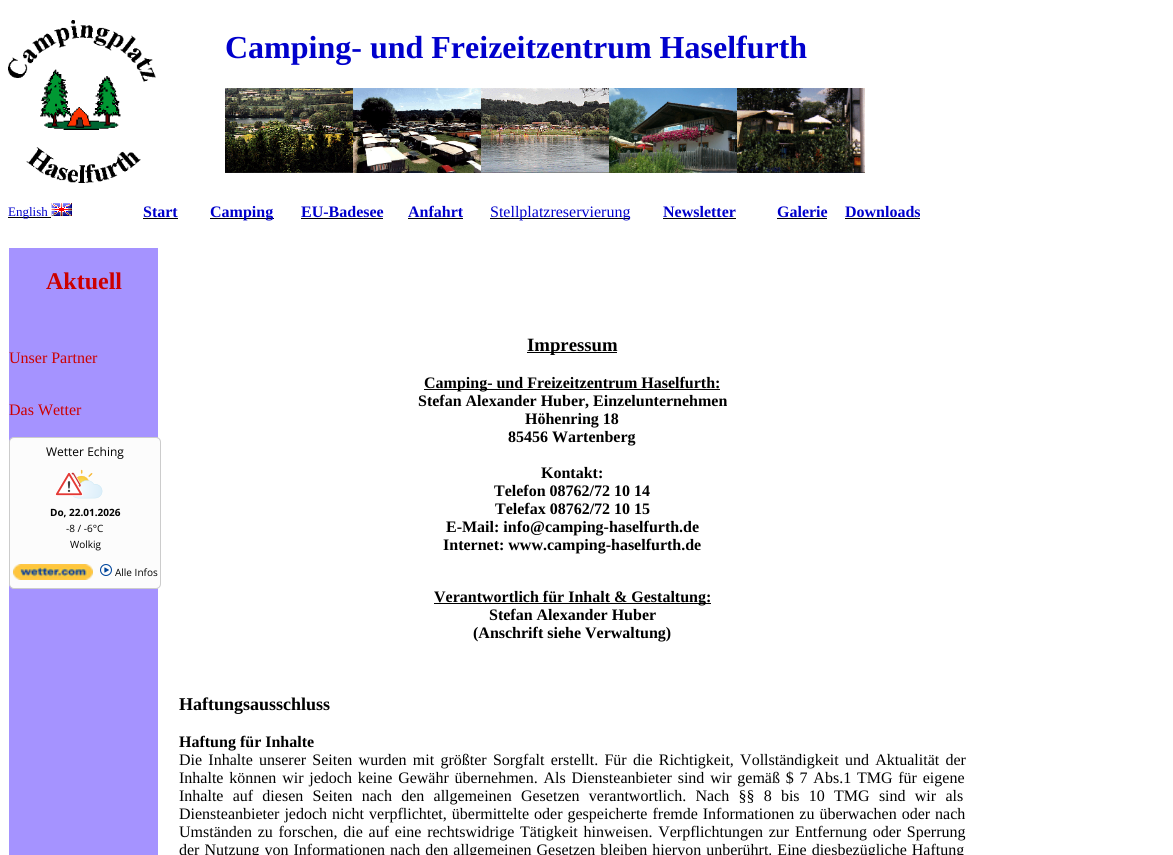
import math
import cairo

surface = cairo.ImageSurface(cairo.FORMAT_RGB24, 1173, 855)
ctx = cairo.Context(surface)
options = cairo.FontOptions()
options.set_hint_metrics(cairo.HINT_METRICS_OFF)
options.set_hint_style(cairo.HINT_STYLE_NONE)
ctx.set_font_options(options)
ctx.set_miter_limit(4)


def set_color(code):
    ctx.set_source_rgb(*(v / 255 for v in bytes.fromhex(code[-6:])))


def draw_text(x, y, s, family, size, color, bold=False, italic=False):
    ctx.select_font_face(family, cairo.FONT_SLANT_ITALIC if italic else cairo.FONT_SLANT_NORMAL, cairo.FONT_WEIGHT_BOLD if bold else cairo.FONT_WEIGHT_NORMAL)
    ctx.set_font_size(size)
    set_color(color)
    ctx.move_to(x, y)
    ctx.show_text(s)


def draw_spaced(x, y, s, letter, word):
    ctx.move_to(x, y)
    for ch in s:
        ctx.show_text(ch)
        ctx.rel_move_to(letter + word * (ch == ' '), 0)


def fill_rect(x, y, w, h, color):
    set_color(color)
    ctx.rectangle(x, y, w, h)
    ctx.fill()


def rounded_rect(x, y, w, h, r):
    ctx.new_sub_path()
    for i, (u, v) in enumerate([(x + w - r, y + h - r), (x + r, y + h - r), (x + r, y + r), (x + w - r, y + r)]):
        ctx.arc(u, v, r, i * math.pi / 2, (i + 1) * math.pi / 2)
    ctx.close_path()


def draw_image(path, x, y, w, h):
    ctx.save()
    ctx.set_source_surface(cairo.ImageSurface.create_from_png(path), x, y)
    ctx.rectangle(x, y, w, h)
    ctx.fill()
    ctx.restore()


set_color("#ffffff")
ctx.paint()
draw_image("assets/img1.png", 8, 20, 148, 163)
draw_text(225, 58, "Camping- und Freizeitzentrum Haselfurth", "Liberation Serif", 32, "#0000cc", bold=True)
draw_image("assets/img2.png", 225, 88, 128, 85)
draw_image("assets/img3.png", 353, 88, 128, 85)
draw_image("assets/img4.png", 481, 88, 128, 85)
draw_image("assets/img5.png", 609, 88, 128, 85)
draw_image("assets/img6.png", 737, 88, 128, 85)
fill_rect(8, 217, 43, 1, "#000000")
draw_text(8, 216, "English", "Liberation Serif", 13, "#0000cc")
draw_image("assets/img7.png", 51, 203, 21, 13)
draw_text(143, 217, "Start", "Liberation Serif", 16, "#0000cc", bold=True)
fill_rect(143, 218, 35, 1, "#000000")
fill_rect(210, 218, 64, 1, "#000000")
draw_text(210, 217, "Camping", "Liberation Serif", 16, "#0000cc", bold=True)
draw_text(301, 217, "EU-Badesee", "Liberation Serif", 16, "#0000cc", bold=True)
fill_rect(301, 218, 82, 1, "#000000")
draw_text(408, 217, "Anfahrt", "Liberation Serif", 16, "#0000cc", bold=True)
fill_rect(408, 218, 55, 1, "#000000")
fill_rect(490, 218, 140, 1, "#000000")
draw_text(490, 217, "Stellplatzreservierung", "Liberation Serif", 16, "#0000cc")
draw_text(663, 217, "Newsletter", "Liberation Serif", 16, "#0000cc", bold=True)
fill_rect(663, 218, 73, 1, "#000000")
draw_text(777, 217, "Galerie", "Liberation Serif", 16, "#0000cc", bold=True)
fill_rect(777, 218, 50, 1, "#000000")
draw_text(845, 217, "Downloads", "Liberation Serif", 16, "#0000cc", bold=True)
fill_rect(845, 218, 75, 1, "#000000")
fill_rect(9, 248, 149, 607, "#a593ff")
draw_text(46, 289, "Aktuell", "Liberation Serif", 24, "#cc0000", bold=True)
draw_text(9, 363, "Unser Partner", "Liberation Serif", 16, "#cc0000")
draw_text(9, 415, "Das Wetter", "Liberation Serif", 16, "#cc0000")
set_color("#fcfcfc")
rounded_rect(9.5, 437.5, 151, 151, 4.5)
ctx.fill_preserve()
set_color("#cccccc")
ctx.set_line_width(1)
ctx.stroke()
draw_text(46, 456, "Wetter Eching", "Open Sans", 12, "#000000")
draw_image("assets/img9.png", 70, 469, 33, 30)
draw_image("assets/img8.png", 55, 473, 28, 23)
draw_text(50, 516, "Do, 22.01.2026", "Open Sans", 10, "#000000", bold=True)
draw_text(66, 532, "-8 / -6°C", "Open Sans", 10, "#000000")
draw_text(70, 548, "Wolkig", "Open Sans", 10, "#000000")
draw_image("assets/img10.png", 13, 564, 80, 16)
draw_image("assets/img11.png", 100, 564, 12, 12)
draw_text(115, 576, "Alle Infos", "Open Sans", 10, "#000000")
fill_rect(527, 352, 90, 1, "#000000")
draw_text(527, 351, "Impressum", "Liberation Serif", 18.75, "#000000", bold=True)
fill_rect(424, 389, 296, 1, "#000000")
draw_text(424, 388, "Camping- und Freizeitzentrum Haselfurth:", "Liberation Serif", 16, "#000000", bold=True)
draw_text(418, 406, "Stefan Alexander Huber, Einzelunternehmen", "Liberation Serif", 16, "#000000", bold=True)
draw_text(525, 424, "Höhenring 18", "Liberation Serif", 16, "#000000", bold=True)
draw_text(508, 442, "85456 Wartenberg", "Liberation Serif", 16, "#000000", bold=True)
draw_text(541, 478, "Kontakt:", "Liberation Serif", 16, "#000000", bold=True)
draw_text(494, 496, "Telefon 08762/72 10 14", "Liberation Serif", 16, "#000000", bold=True)
draw_text(495, 514, "Telefax 08762/72 10 15", "Liberation Serif", 16, "#000000", bold=True)
draw_text(446, 532, "E-Mail: info@camping-haselfurth.de", "Liberation Serif", 16, "#000000", bold=True)
draw_text(443, 550, "Internet: www.camping-haselfurth.de", "Liberation Serif", 16, "#000000", bold=True)
fill_rect(434, 603, 277, 1, "#000000")
draw_text(434, 602, "Verantwortlich für Inhalt & Gestaltung:", "Liberation Serif", 16, "#000000", bold=True)
draw_text(489, 620, "Stefan Alexander Huber", "Liberation Serif", 16, "#000000", bold=True)
draw_text(473, 638, "(Anschrift siehe Verwaltung)", "Liberation Serif", 16, "#000000", bold=True)
draw_text(179, 710, "Haftungsausschluss", "Liberation Serif", 18, "#000000", bold=True)
draw_text(179, 747, "Haftung für Inhalte", "Liberation Serif", 16, "#000000", bold=True)
ctx.select_font_face("Liberation Serif")
draw_spaced(179, 765, "Die Inhalte unserer Seiten wurden mit größter Sorgfalt erstellt. Für die Richtigkeit, Vollständigkeit und Aktualität der", 0, 2.25)
draw_spaced(179, 783, "Inhalte können wir jedoch keine Gewähr übernehmen. Als Diensteanbieter sind wir gemäß $ 7 Abs.1 TMG für eigene", 0, 1.8)
draw_spaced(179, 801, "Inhalte auf diesen Seiten nach den allgemeinen Gesetzen verantwortlich. Nach §§ 8 bis 10 TMG sind wir als", 0, 5.25)
draw_spaced(179, 819, "Diensteanbieter jedoch nicht verpflichtet, übermittelte oder gespeicherte fremde Informationen zu überwachen oder nach", 0, 1)
draw_spaced(179, 837, "Umständen zu forschen, die auf eine rechtswidrige Tätigkeit hinweisen. Verpflichtungen zur Entfernung oder Sperrung", 0, 1.75)
draw_spaced(179, 855, "der Nutzung von Informationen nach den allgemeinen Gesetzen bleiben hiervon unberührt. Eine diesbezügliche Haftung", 0, 1)
surface.write_to_png("output.png")
